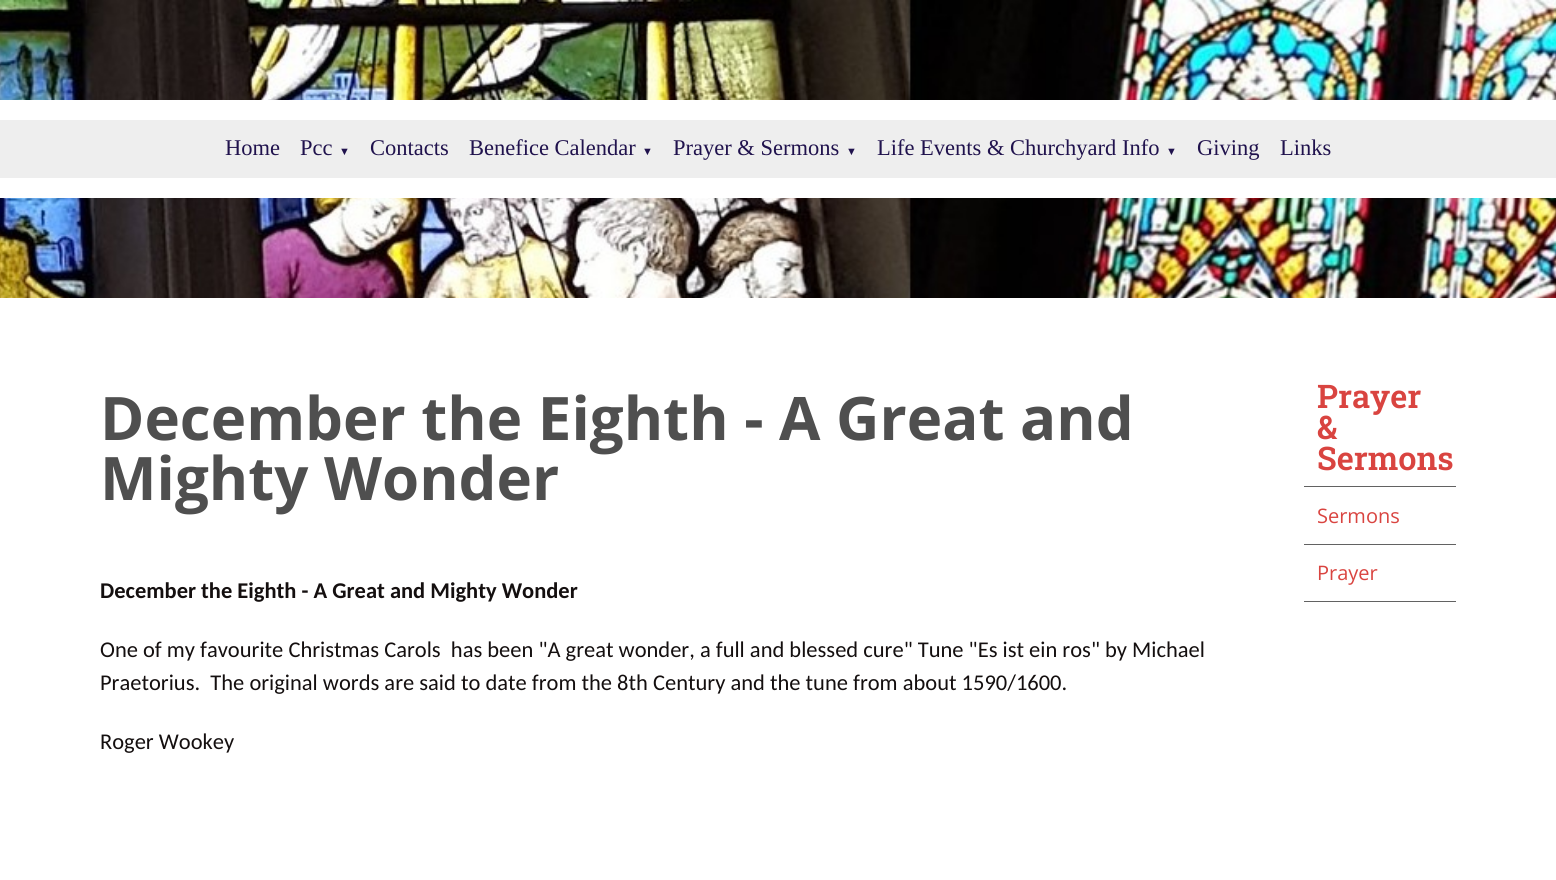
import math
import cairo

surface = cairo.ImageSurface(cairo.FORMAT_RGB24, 1556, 880)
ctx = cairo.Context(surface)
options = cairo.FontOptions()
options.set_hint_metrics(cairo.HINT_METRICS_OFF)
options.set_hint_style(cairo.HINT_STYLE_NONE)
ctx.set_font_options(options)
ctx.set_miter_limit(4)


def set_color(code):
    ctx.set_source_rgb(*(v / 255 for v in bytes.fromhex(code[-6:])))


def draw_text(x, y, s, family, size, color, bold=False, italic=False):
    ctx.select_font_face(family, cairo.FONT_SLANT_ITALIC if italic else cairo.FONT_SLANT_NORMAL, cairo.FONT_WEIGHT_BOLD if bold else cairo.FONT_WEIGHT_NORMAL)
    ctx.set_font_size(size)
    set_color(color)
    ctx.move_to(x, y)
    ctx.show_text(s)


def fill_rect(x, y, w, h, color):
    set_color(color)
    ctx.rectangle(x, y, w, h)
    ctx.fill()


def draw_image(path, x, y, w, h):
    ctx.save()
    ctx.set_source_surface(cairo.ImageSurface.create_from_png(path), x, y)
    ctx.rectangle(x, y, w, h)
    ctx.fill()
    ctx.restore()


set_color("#ffffff")
ctx.paint()
draw_image("assets/img1.png", 0, 0, 1556, 298)
fill_rect(0, 100, 1556, 98, "#ffffff")
fill_rect(0, 120, 1556, 58, "#eeeeee")
draw_text(225, 155, "Home", "Liberation Serif", 22.5, "#20124d")
draw_text(300, 155, "Pcc", "Liberation Serif", 22.5, "#20124d")
draw_text(339, 155, "▼", "Liberation Serif", 11, "#20124d")
draw_text(370, 155, "Contacts", "Liberation Serif", 22.5, "#20124d")
draw_text(469, 155, "Benefice Calendar", "Liberation Serif", 22.5, "#20124d")
draw_text(642, 155, "▼", "Liberation Serif", 11, "#20124d")
draw_text(673, 155, "Prayer & Sermons", "Liberation Serif", 22.5, "#20124d")
draw_text(846, 155, "▼", "Liberation Serif", 11, "#20124d")
draw_text(877, 155, "Life Events & Churchyard Info", "Liberation Serif", 22.5, "#20124d")
draw_text(1166, 155, "▼", "Liberation Serif", 11, "#20124d")
draw_text(1197, 155, "Giving", "Liberation Serif", 22.5, "#20124d")
draw_text(1280, 155, "Links", "Liberation Serif", 22.5, "#20124d")
draw_text(100, 440, "December the Eighth - A Great and", "Open Sans", 60, "#4f4f4f", bold=True)
draw_text(100, 500, "Mighty Wonder", "Open Sans", 60, "#4f4f4f", bold=True)
draw_text(100, 598, "December the Eighth - A Great and Mighty Wonder", "Carlito", 22.5, "#140f0f", bold=True)
draw_text(100, 657, "One of my favourite Christmas Carols  has been \"A great wonder, a full and blessed cure\" Tune \"Es ist ein ros\" by Michael", "Carlito", 22.5, "#140f0f")
draw_text(100, 690, "Praetorius.  The original words are said to date from the 8th Century and the tune from about 1590/1600.", "Carlito", 22.5, "#140f0f")
draw_text(100, 749, "Roger Wookey", "Carlito", 22.5, "#140f0f")
fill_rect(1304, 486, 152, 1, "#626262")
draw_text(1317, 408, "Prayer", "Roboto Slab SemiBold", 32.5, "#d94440")
draw_text(1317, 439, "&", "Roboto Slab SemiBold", 32.5, "#d94440")
draw_text(1317, 470, "Sermons", "Roboto Slab SemiBold", 32.5, "#d94440")
fill_rect(1304, 544, 152, 1, "#626262")
draw_text(1317, 523, "Sermons", "Open Sans", 20, "#d94440")
fill_rect(1304, 601, 152, 1, "#626262")
draw_text(1317, 580, "Prayer", "Open Sans", 20, "#d94440")
surface.write_to_png("output.png")
